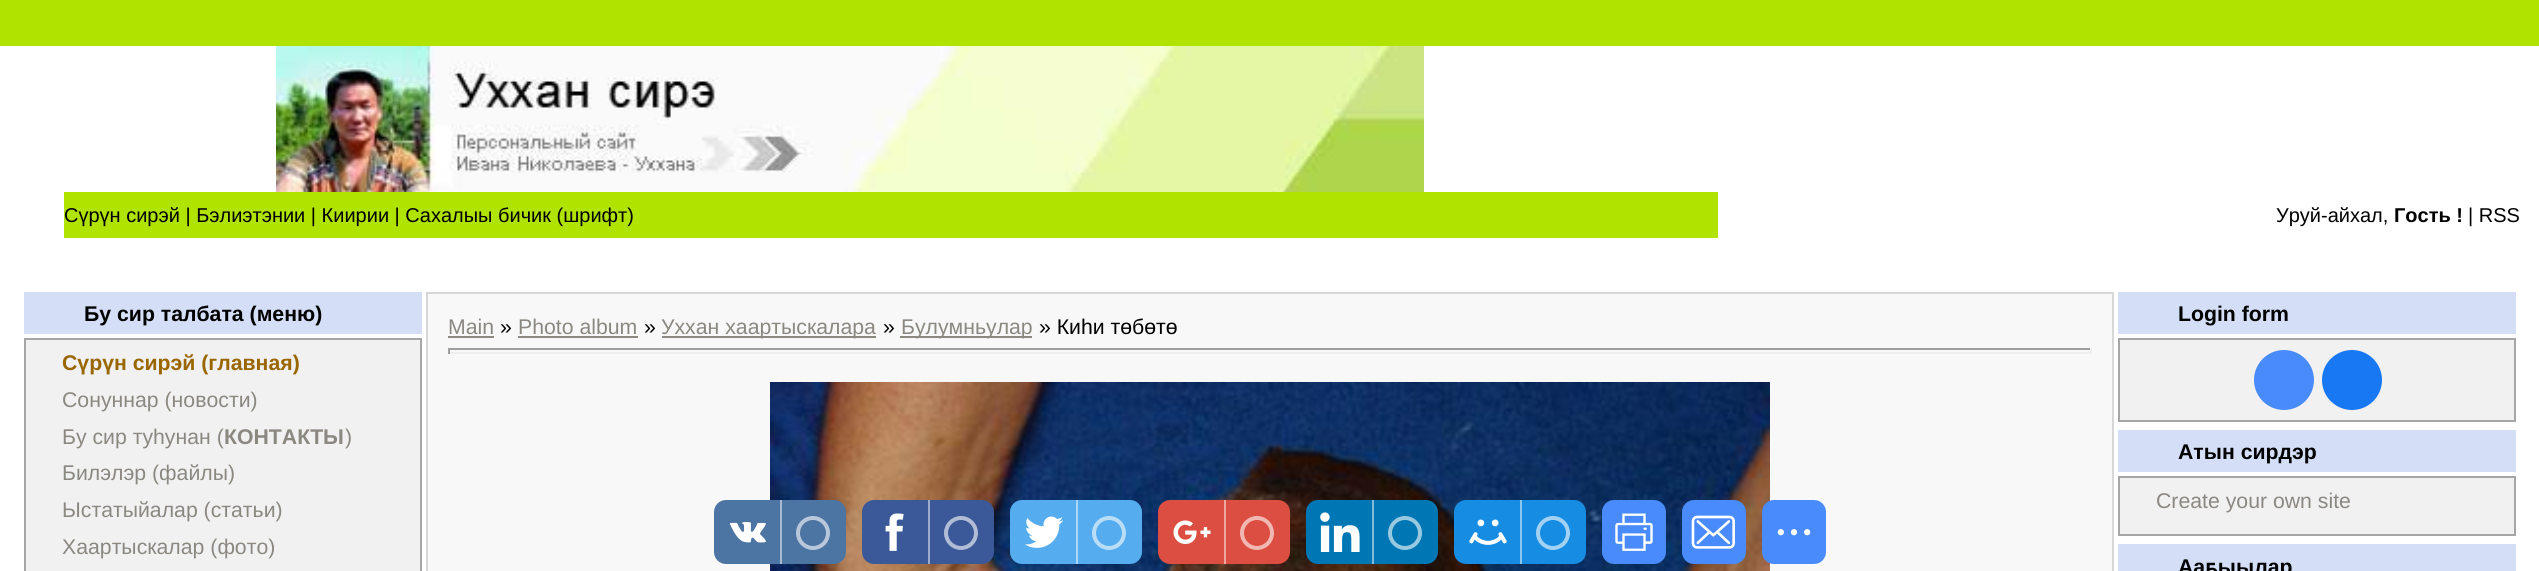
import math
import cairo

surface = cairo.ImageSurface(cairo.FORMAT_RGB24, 2539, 571)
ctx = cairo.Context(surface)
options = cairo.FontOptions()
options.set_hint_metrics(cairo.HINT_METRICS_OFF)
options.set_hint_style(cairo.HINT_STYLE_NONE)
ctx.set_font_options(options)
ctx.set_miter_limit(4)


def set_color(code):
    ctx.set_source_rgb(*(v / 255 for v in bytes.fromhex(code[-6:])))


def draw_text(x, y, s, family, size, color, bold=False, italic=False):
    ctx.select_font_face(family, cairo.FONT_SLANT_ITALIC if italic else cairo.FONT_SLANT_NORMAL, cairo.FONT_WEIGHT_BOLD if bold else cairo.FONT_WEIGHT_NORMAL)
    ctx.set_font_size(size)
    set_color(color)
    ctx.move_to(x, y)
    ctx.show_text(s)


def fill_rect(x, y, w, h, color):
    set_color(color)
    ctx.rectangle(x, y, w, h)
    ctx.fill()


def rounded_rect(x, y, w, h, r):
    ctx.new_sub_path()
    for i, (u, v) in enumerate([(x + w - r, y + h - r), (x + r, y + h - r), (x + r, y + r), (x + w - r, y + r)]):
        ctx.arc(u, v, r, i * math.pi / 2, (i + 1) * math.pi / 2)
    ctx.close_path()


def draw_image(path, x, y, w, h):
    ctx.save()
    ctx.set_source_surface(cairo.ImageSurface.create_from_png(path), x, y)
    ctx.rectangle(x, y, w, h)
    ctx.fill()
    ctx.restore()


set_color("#ffffff")
ctx.paint()
fill_rect(0, 0, 2539, 46, "#b0e300")
draw_image("assets/img1.png", 276, 46, 1148, 146)
fill_rect(64, 192, 1654, 46, "#b0e300")
draw_text(64, 222, "Сүрүн сирэй | Бэлиэтэнии | Киирии | Сахалыы бичик (шрифт)", "Liberation Sans", 20, "#000000")
draw_text(2276, 222, "Уруй-айхал,", "Liberation Sans", 20, "#000000")
draw_text(2394, 222, "Гость !", "Liberation Sans", 20, "#000000", bold=True)
draw_text(2468, 222, "| RSS", "Liberation Sans", 20, "#000000")
fill_rect(24, 292, 398, 42, "#d4dff7")
draw_text(84, 321, "Бу сир талбата (меню)", "Liberation Sans", 21.25, "#000000", bold=True)
set_color("#f1f1f1")
ctx.rectangle(25, 339, 396, 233)
ctx.fill_preserve()
set_color("#a7a6a6")
ctx.stroke()
draw_text(62, 370, "Сүрүн сирэй (главная)", "Liberation Sans", 21.25, "#996600", bold=True)
draw_text(62, 407, "Сонуннар (новости)", "Liberation Sans", 21.25, "#8b8881")
draw_text(62, 444, "Бу сир туһунан (", "Liberation Sans", 21.25, "#8b8881")
draw_text(224, 444, "КОНТАКТЫ", "Liberation Sans", 21.25, "#8b8881", bold=True)
draw_text(345, 444, ")", "Liberation Sans", 21.25, "#8b8881")
draw_text(62, 480, "Билэлэр (файлы)", "Liberation Sans", 21.25, "#8b8881")
draw_text(62, 517, "Ыстатыйалар (статьи)", "Liberation Sans", 21.25, "#8b8881")
draw_text(62, 554, "Хаартыскалар (фото)", "Liberation Sans", 21.25, "#8b8881")
ctx.rectangle(427, 293, 1686, 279)
set_color("#d7d7d7")
ctx.stroke()
fill_rect(428, 294, 1684, 277, "#f8f8f8")
draw_text(448, 334, "Main", "Liberation Sans", 21.25, "#8b8881")
fill_rect(448, 336, 46, 2, "#8b8881")
draw_text(500, 334, "»", "Liberation Sans", 21.25, "#000000")
draw_text(518, 334, "Photo album", "Liberation Sans", 21.25, "#8b8881")
fill_rect(518, 336, 120, 2, "#8b8881")
draw_text(644, 334, "»", "Liberation Sans", 21.25, "#000000")
fill_rect(662, 336, 214, 2, "#8b8881")
draw_text(661, 334, "Уххан хаартыскалара", "Liberation Sans", 21.25, "#8b8881")
draw_text(883, 334, "»", "Liberation Sans", 21.25, "#000000")
fill_rect(900, 336, 132, 2, "#8b8881")
draw_text(901, 334, "Булумньулар", "Liberation Sans", 21.25, "#8b8881")
draw_text(1039, 334, "» Киһи төбөтө", "Liberation Sans", 21.25, "#000000")
fill_rect(448, 348, 1644, 2, "#9f9f9f")
fill_rect(2090, 348, 2, 6, "#eeeeee")
fill_rect(448, 352, 1644, 2, "#eeeeee")
fill_rect(448, 348, 2, 6, "#9f9f9f")
draw_image("assets/img2.png", 770, 382, 1000, 189)
fill_rect(2118, 292, 398, 42, "#d4dff7")
draw_text(2178, 321, "Login form", "Liberation Sans", 21.25, "#000000", bold=True)
set_color("#f1f1f1")
ctx.rectangle(2119, 339, 396, 82)
ctx.fill_preserve()
set_color("#a7a6a6")
ctx.stroke()
set_color("#498bfa")
ctx.arc(2284, 380, 30, 0, 2 * math.pi)
ctx.fill()
set_color("#1877f2")
ctx.arc(2352, 380, 30, 0, 2 * math.pi)
ctx.fill()
fill_rect(2118, 430, 398, 42, "#d4dff7")
draw_text(2178, 459, "Атын сирдэр", "Liberation Sans", 21.25, "#000000", bold=True)
set_color("#f1f1f1")
ctx.rectangle(2119, 477, 396, 58)
ctx.fill_preserve()
set_color("#a7a6a6")
ctx.stroke()
draw_text(2156, 508, "Create your own site", "Liberation Sans", 21.25, "#8b8881")
fill_rect(2118, 544, 398, 27, "#d4dff7")
draw_text(2178, 574, "Ааҕыылар", "Liberation Sans", 21.25, "#000000", bold=True)
set_color("#4d75a3")
rounded_rect(714, 500, 132, 64, 12)
ctx.fill()
draw_image("assets/img3.png", 729, 522, 37, 21)
fill_rect(780, 500, 2, 64, "#a6bad1")
ctx.arc(813, 533, 15, 0, 2 * math.pi)
set_color("#b8c8da")
ctx.set_line_width(4)
ctx.stroke()
set_color("#3b5998")
rounded_rect(862, 500, 132, 64, 12)
ctx.fill()
draw_image("assets/img4.png", 885, 513, 19, 38)
fill_rect(928, 500, 2, 64, "#9daccc")
ctx.arc(961, 533, 15, 0, 2 * math.pi)
set_color("#b1bdd6")
ctx.stroke()
set_color("#55acee")
rounded_rect(1010, 500, 132, 64, 12)
ctx.fill()
draw_image("assets/img5.png", 1025, 516, 39, 32)
fill_rect(1076, 500, 2, 64, "#aad6f7")
ctx.arc(1109, 533, 15, 0, 2 * math.pi)
set_color("#bbdef8")
ctx.stroke()
set_color("#dc4e41")
rounded_rect(1158, 500, 132, 64, 12)
ctx.fill()
draw_image("assets/img6.png", 1173, 520, 38, 24)
fill_rect(1224, 500, 2, 64, "#eea7a0")
ctx.arc(1257, 533, 15, 0, 2 * math.pi)
set_color("#f1b8b3")
ctx.stroke()
set_color("#0077b5")
rounded_rect(1306, 500, 132, 64, 12)
ctx.fill()
draw_image("assets/img7.png", 1320, 512, 40, 40)
fill_rect(1372, 500, 2, 64, "#80bbda")
ctx.arc(1405, 533, 15, 0, 2 * math.pi)
set_color("#99c9e1")
ctx.stroke()
set_color("#168de2")
rounded_rect(1454, 500, 132, 64, 12)
ctx.fill()
draw_image("assets/img8.png", 1469, 519, 38, 26)
fill_rect(1520, 500, 2, 64, "#8bc6f1")
ctx.arc(1553, 533, 15, 0, 2 * math.pi)
set_color("#a2d1f3")
ctx.stroke()
set_color("#498bfa")
rounded_rect(1602, 500, 64, 64, 12)
ctx.fill()
draw_image("assets/img9.png", 1615, 513, 38, 38)
rounded_rect(1682, 500, 64, 64, 12)
ctx.fill()
draw_image("assets/img10.png", 1691, 515, 44, 34)
rounded_rect(1762, 500, 64, 64, 12)
ctx.fill()
draw_image("assets/img11.png", 1777, 529, 34, 7)
surface.write_to_png("output.png")
